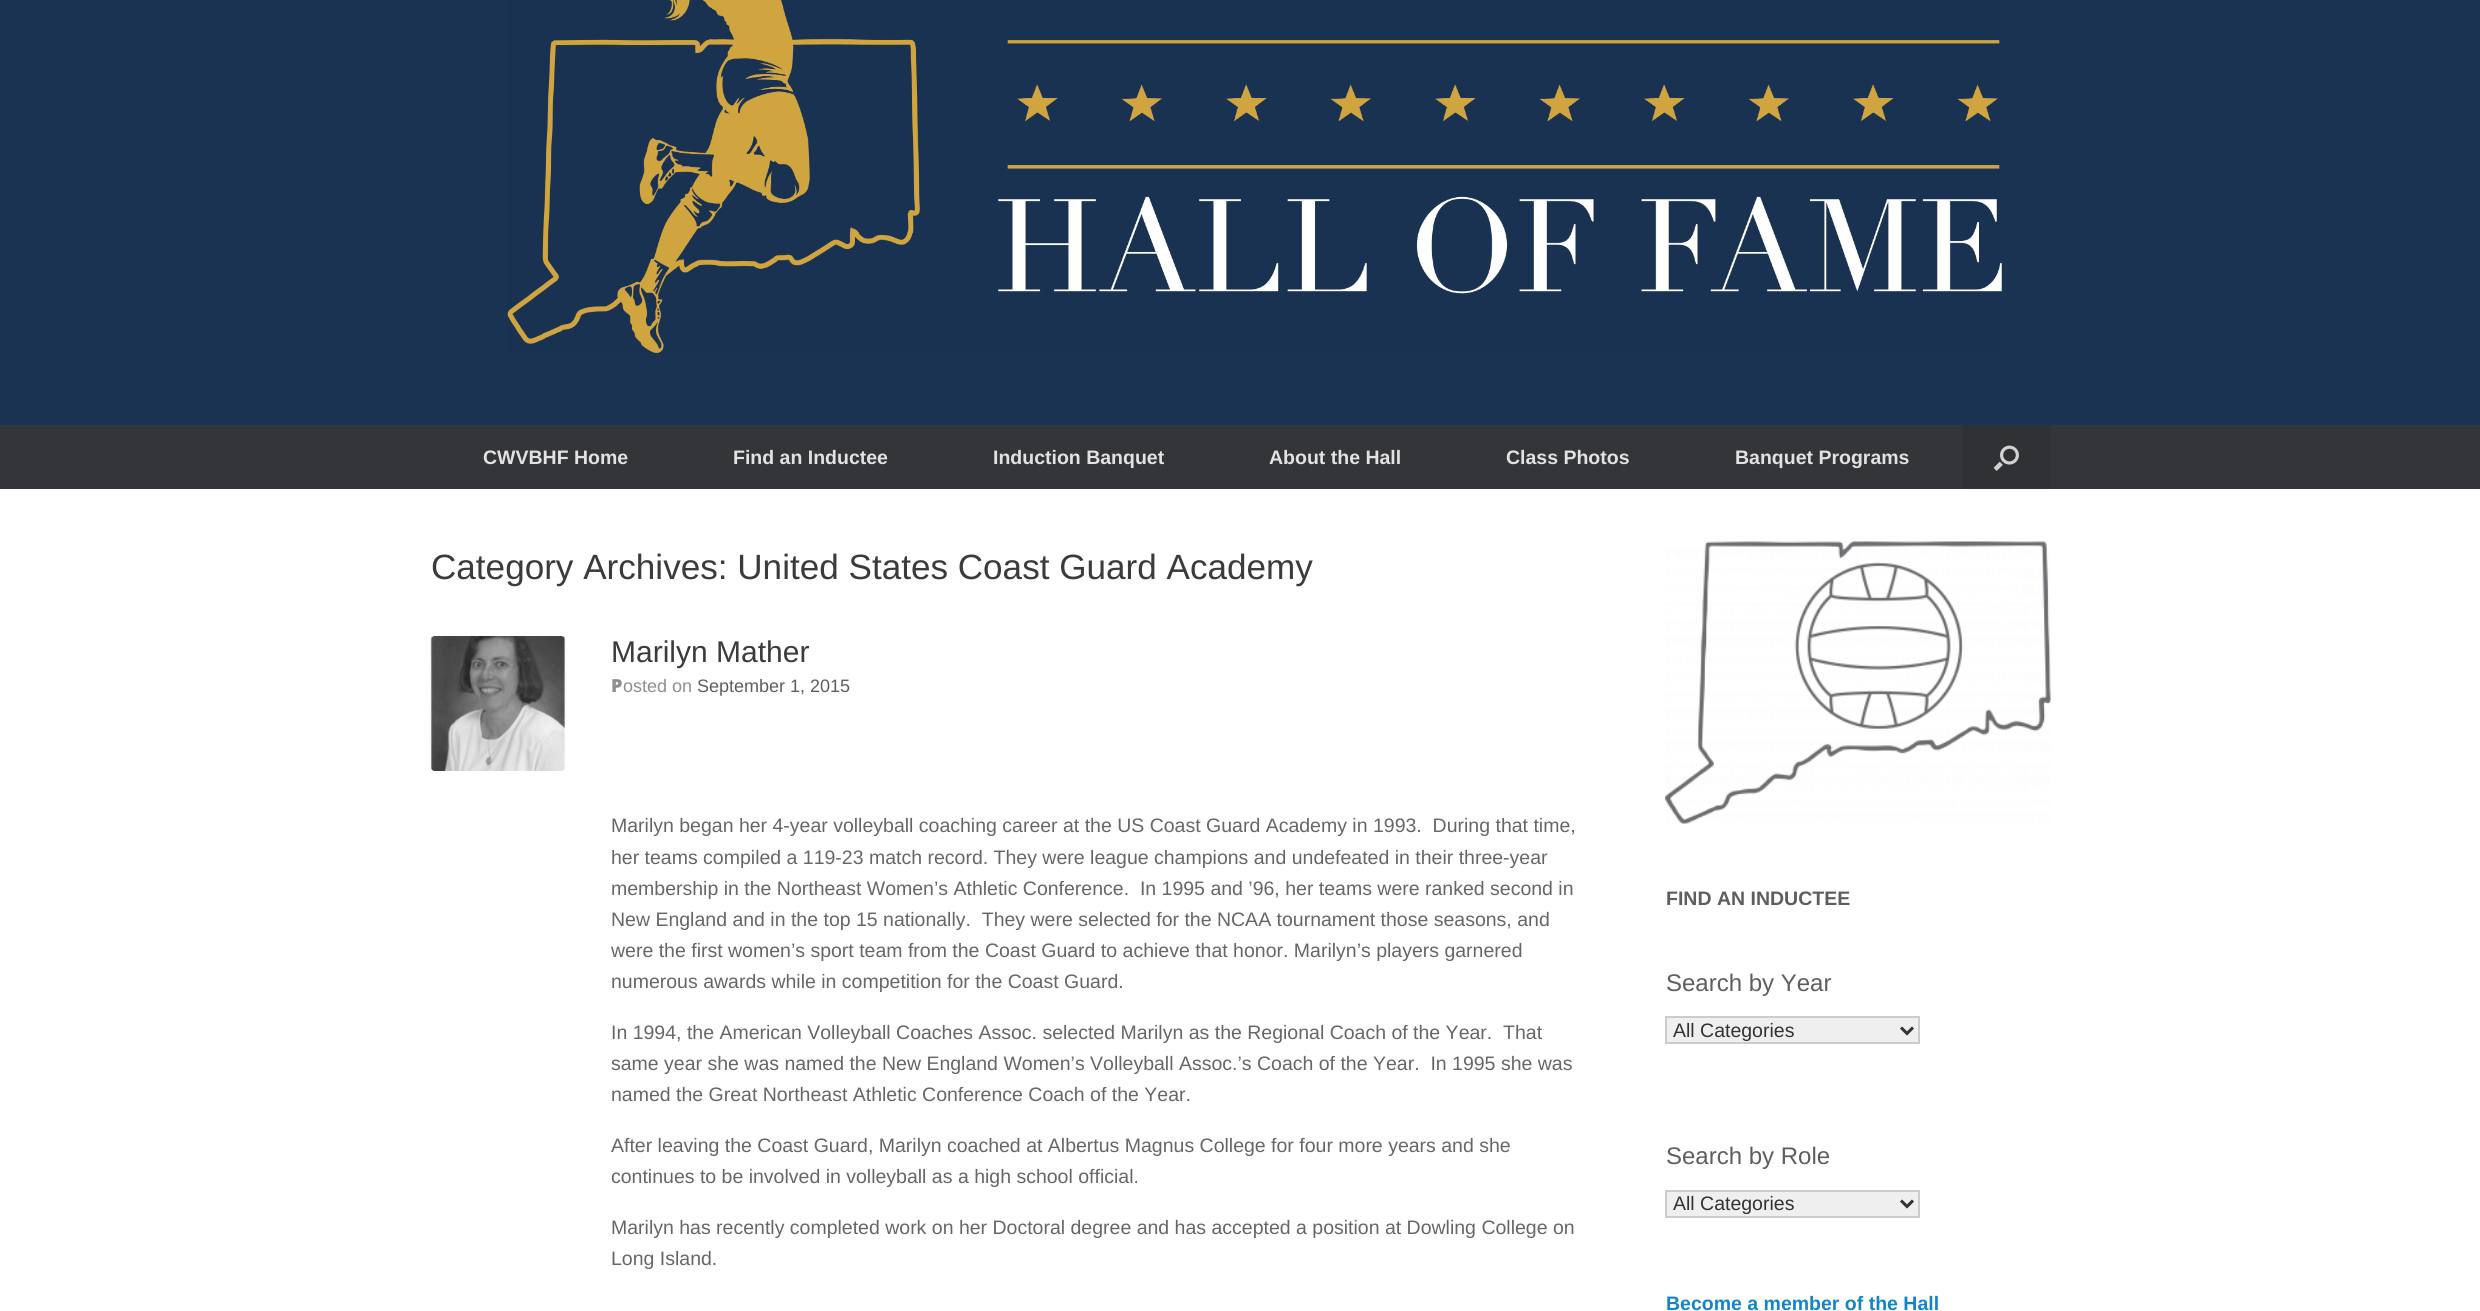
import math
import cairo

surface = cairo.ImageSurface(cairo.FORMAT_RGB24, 2480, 1311)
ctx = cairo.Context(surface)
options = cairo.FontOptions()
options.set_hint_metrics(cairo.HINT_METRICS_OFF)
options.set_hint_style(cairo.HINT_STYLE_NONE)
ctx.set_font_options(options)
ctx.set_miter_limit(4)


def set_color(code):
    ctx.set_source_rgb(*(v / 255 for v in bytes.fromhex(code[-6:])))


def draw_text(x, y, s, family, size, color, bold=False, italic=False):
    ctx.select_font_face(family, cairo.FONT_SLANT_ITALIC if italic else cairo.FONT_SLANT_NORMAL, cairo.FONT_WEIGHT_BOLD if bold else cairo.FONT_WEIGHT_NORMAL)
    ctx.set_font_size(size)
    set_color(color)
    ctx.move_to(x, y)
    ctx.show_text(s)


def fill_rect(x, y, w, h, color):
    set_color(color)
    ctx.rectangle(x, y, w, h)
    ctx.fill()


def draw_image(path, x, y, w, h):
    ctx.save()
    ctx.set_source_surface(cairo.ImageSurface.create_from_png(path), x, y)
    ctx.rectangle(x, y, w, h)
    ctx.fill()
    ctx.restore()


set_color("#1a3352")
ctx.paint()
draw_image("assets/img1.png", 507, 0, 1495, 354)
fill_rect(0, 425, 2480, 64, "#343538")
draw_text(483, 464, "CWVBHF Home", "Liberation Sans", 19.5, "#e2e2e2", bold=True)
draw_text(733, 464, "Find an Inductee", "Liberation Sans", 19.5, "#e2e2e2", bold=True)
draw_text(993, 464, "Induction Banquet", "Liberation Sans", 19.5, "#e2e2e2", bold=True)
draw_text(1269, 464, "About the Hall", "Liberation Sans", 19.5, "#e2e2e2", bold=True)
draw_text(1506, 464, "Class Photos", "Liberation Sans", 19.5, "#e2e2e2", bold=True)
draw_text(1735, 464, "Banquet Programs", "Liberation Sans", 19.5, "#e2e2e2", bold=True)
fill_rect(1962, 425, 89, 64, "#303134")
draw_image("assets/img2.png", 1993, 445, 26, 26)
fill_rect(0, 489, 2480, 822, "#ffffff")
draw_text(431, 579, "Category Archives: United States Coast Guard Academy", "Liberation Sans", 35.1, "#3b3b3b")
draw_image("assets/img3.png", 430, 636, 136, 135)
draw_text(611, 662, "Marilyn Mather", "Liberation Sans", 30, "#3b3b3b")
draw_text(611, 692, "P", "Noto Sans Black", 18, "#8f8f8f")
draw_text(623, 692, "osted on", "Liberation Sans", 18, "#8f8f8f")
draw_text(697, 692, "September 1, 2015", "Liberation Sans", 18, "#5e5e5e")
draw_text(611, 832, "Marilyn began her 4-year volleyball coaching career at the US Coast Guard Academy in 1993.  During that time,", "Liberation Sans", 19.5, "#666666")
draw_text(611, 864, "her teams compiled a 119-23 match record. They were league champions and undefeated in their three-year", "Liberation Sans", 19.5, "#666666")
draw_text(611, 895, "membership in the Northeast Women’s Athletic Conference.  In 1995 and ’96, her teams were ranked second in", "Liberation Sans", 19.5, "#666666")
draw_text(611, 926, "New England and in the top 15 nationally.  They were selected for the NCAA tournament those seasons, and", "Liberation Sans", 19.5, "#666666")
draw_text(611, 957, "were the first women’s sport team from the Coast Guard to achieve that honor. Marilyn’s players garnered", "Liberation Sans", 19.5, "#666666")
draw_text(611, 988, "numerous awards while in competition for the Coast Guard.", "Liberation Sans", 19.5, "#666666")
draw_text(611, 1039, "In 1994, the American Volleyball Coaches Assoc. selected Marilyn as the Regional Coach of the Year.  That", "Liberation Sans", 19.5, "#666666")
draw_text(611, 1070, "same year she was named the New England Women’s Volleyball Assoc.’s Coach of the Year.  In 1995 she was", "Liberation Sans", 19.5, "#666666")
draw_text(611, 1101, "named the Great Northeast Athletic Conference Coach of the Year.", "Liberation Sans", 19.5, "#666666")
draw_text(611, 1152, "After leaving the Coast Guard, Marilyn coached at Albertus Magnus College for four more years and she", "Liberation Sans", 19.5, "#666666")
draw_text(611, 1183, "continues to be involved in volleyball as a high school official.", "Liberation Sans", 19.5, "#666666")
draw_text(611, 1234, "Marilyn has recently completed work on her Doctoral degree and has accepted a position at Dowling College on", "Liberation Sans", 19.5, "#666666")
draw_text(611, 1265, "Long Island.", "Liberation Sans", 19.5, "#666666")
draw_image("assets/img4.png", 1665, 541, 386, 283)
draw_text(1666, 905, "FIND AN INDUCTEE", "Liberation Sans", 19.5, "#5e5e5e", bold=True)
draw_text(1666, 991, "Search by Year", "Liberation Sans", 24, "#5e5e5e")
set_color("#efefef")
ctx.rectangle(1666, 1017, 253, 26)
ctx.fill_preserve()
set_color("#cccccc")
ctx.stroke()
ctx.new_path()
ctx.move_to(1901, 1027.5)
ctx.line_to(1907, 1033.5)
ctx.line_to(1913, 1027.5)
set_color("#333333")
ctx.set_line_width(3)
ctx.stroke()
draw_text(1673, 1037, "All Categories", "Liberation Sans", 19.5, "#333333")
draw_text(1666, 1164, "Search by Role", "Liberation Sans", 24, "#5e5e5e")
set_color("#efefef")
ctx.rectangle(1666, 1191, 253, 26)
ctx.fill_preserve()
set_color("#cccccc")
ctx.set_line_width(2)
ctx.stroke()
ctx.new_path()
ctx.move_to(1901, 1200.5)
ctx.line_to(1907, 1206.5)
ctx.line_to(1913, 1200.5)
set_color("#333333")
ctx.set_line_width(3)
ctx.stroke()
draw_text(1673, 1210, "All Categories", "Liberation Sans", 19.5, "#333333")
draw_text(1666, 1310, "Become a member of the Hall", "Liberation Sans", 19.5, "#1385c6", bold=True)
surface.write_to_png("output.png")
